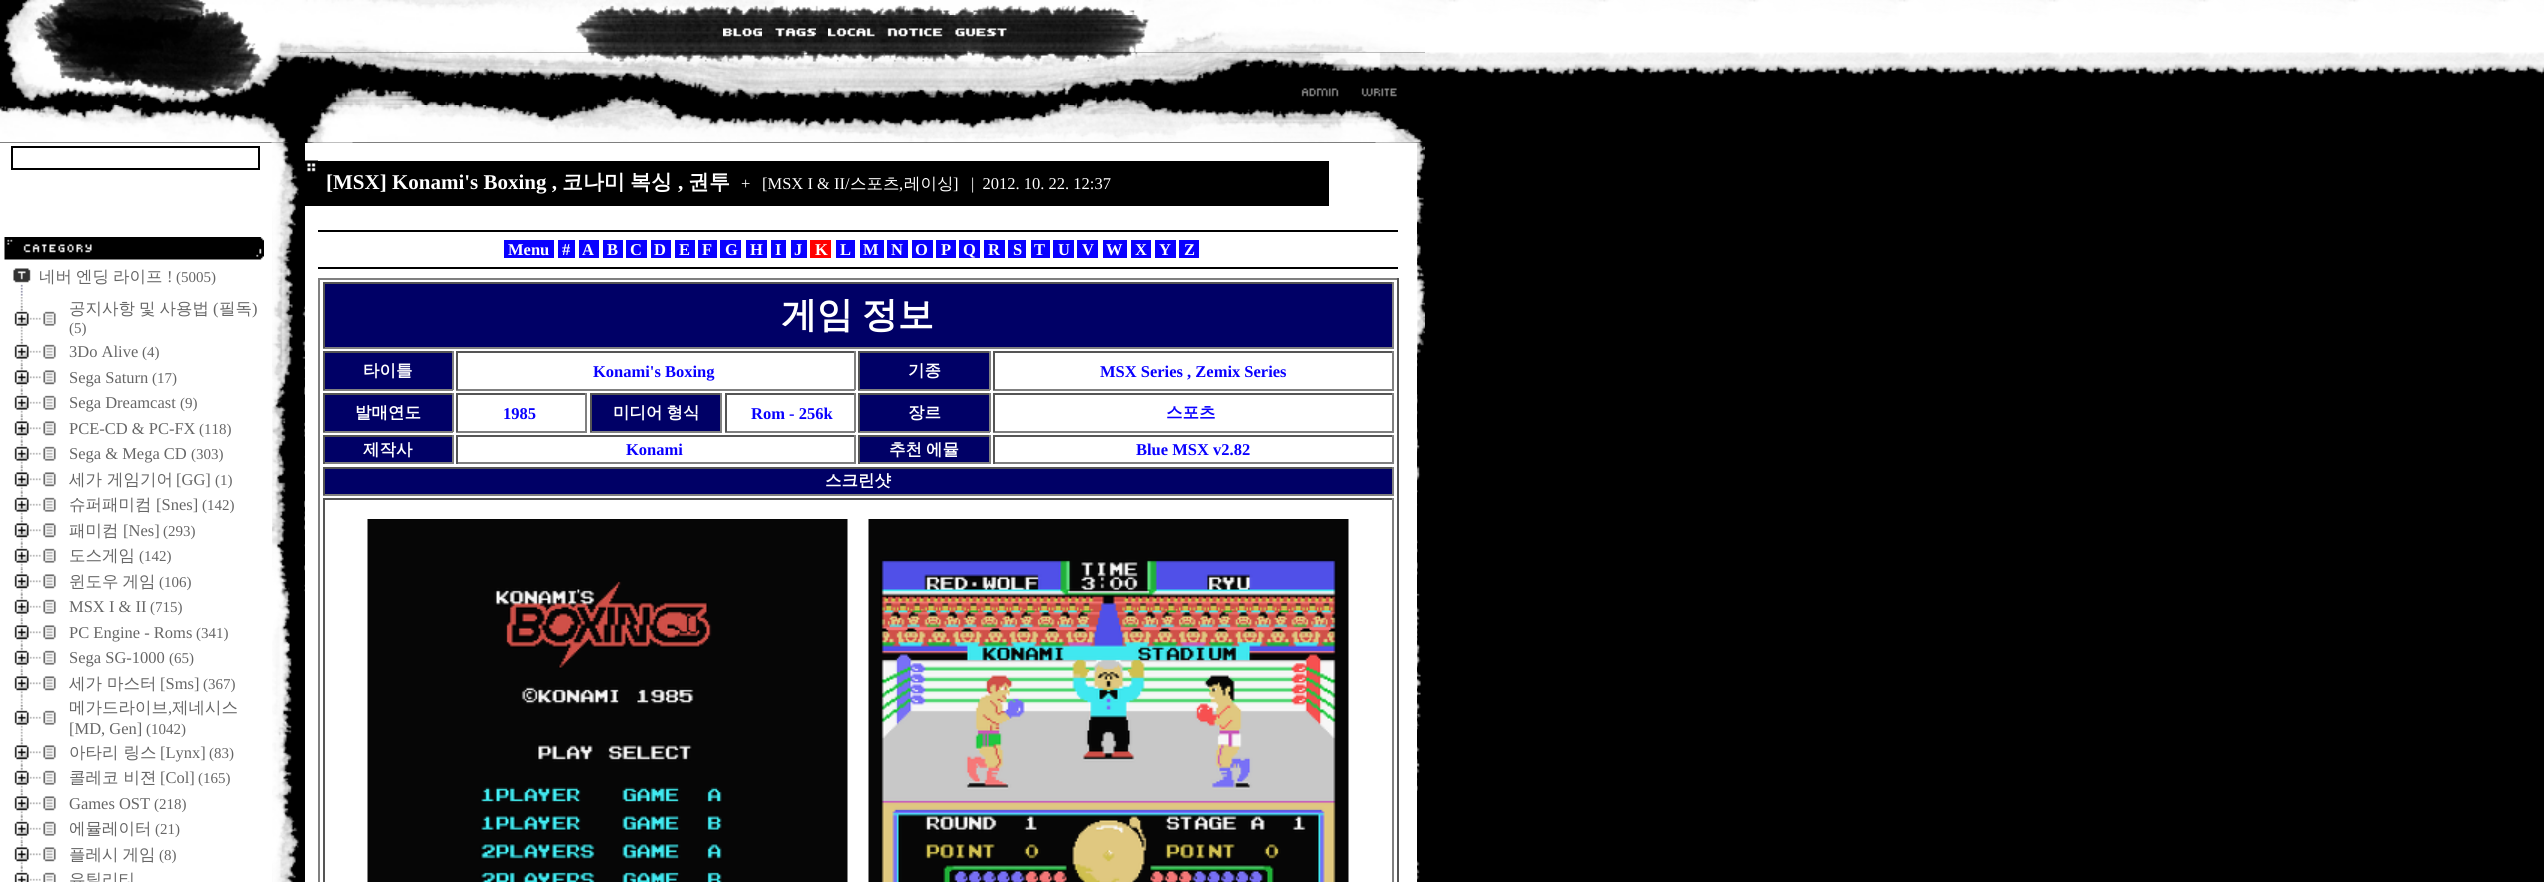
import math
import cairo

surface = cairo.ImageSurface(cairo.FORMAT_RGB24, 2544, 882)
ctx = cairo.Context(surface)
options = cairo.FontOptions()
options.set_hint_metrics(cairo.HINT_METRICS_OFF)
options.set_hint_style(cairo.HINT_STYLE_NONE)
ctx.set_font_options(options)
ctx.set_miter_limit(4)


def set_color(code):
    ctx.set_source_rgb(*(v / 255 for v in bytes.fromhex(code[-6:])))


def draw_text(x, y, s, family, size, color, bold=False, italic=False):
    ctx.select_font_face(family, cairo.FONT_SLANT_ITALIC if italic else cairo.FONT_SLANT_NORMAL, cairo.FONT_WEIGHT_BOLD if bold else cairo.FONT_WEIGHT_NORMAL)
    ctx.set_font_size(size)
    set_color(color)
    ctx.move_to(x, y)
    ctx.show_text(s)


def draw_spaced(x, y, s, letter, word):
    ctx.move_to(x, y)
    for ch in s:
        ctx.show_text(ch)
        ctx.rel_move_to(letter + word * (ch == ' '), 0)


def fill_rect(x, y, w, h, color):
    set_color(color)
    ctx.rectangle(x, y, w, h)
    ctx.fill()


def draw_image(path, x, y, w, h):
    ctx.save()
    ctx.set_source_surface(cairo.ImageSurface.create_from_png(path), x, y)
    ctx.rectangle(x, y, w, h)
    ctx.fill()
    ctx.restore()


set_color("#000000")
ctx.paint()
draw_image("assets/img1.png", 24, 0, 276, 105)
draw_image("assets/img2.png", 3, 0, 280, 104)
draw_image("assets/img3.png", 300, 0, 1125, 15)
draw_image("assets/img4.png", 300, 15, 1125, 38)
draw_image("assets/img5.png", 723, 28, 39, 9)
draw_image("assets/img6.png", 775, 28, 41, 9)
draw_image("assets/img7.png", 828, 28, 47, 9)
draw_image("assets/img8.png", 887, 28, 56, 9)
draw_image("assets/img9.png", 955, 28, 52, 9)
draw_image("assets/img10.png", 300, 52, 1125, 53)
draw_image("assets/img11.png", 1301, 88, 38, 9)
draw_image("assets/img12.png", 1361, 88, 36, 9)
draw_image("assets/img13.png", 1425, 0, 1119, 76)
draw_image("assets/img14.png", 0, 105, 287, 38)
draw_image("assets/img15.png", 271, 142, 28, 740)
fill_rect(0, 143, 272, 739, "#ffffff")
ctx.rectangle(12, 147, 247, 22)
set_color("#000000")
ctx.stroke()
draw_image("assets/img16.png", 4, 237, 260, 23)
draw_image("assets/img17.png", 13, 268, 18, 28)
ctx.select_font_face("WenQuanYi Zen Hei Medium")
ctx.set_font_size(16.5)
set_color("#666666")
draw_spaced(39, 282, "네버 엔딩 라이프", 0, -1)
draw_text(167, 282, "!", "Liberation Serif", 16.5, "#666666")
draw_text(176, 282, "(5005)", "Liberation Serif", 15, "#666666")
draw_image("assets/img18.png", 20, 297, 3, 42)
draw_image("assets/img19.png", 14, 306, 42, 20)
ctx.select_font_face("WenQuanYi Zen Hei Medium")
ctx.set_font_size(16.5)
draw_spaced(69, 314, "공지사항 및 사용법", 0, -1)
draw_text(213, 314, "(", "Liberation Serif", 16.5, "#666666")
draw_text(219, 314, "필독", "WenQuanYi Zen Hei Medium", 16.5, "#666666")
draw_text(252, 314, ")", "Liberation Serif", 16.5, "#666666")
draw_text(69, 333, "(5)", "Liberation Serif", 15, "#666666")
draw_image("assets/img20.png", 20, 339, 3, 26)
draw_image("assets/img19.png", 14, 339, 42, 20)
draw_text(69, 357, "3Do Alive", "Liberation Serif", 16.5, "#666666")
draw_text(142, 357, "(4)", "Liberation Serif", 15, "#666666")
draw_image("assets/img21.png", 20, 364, 3, 26)
draw_image("assets/img22.png", 14, 364, 42, 21)
draw_text(69, 383, "Sega Saturn", "Liberation Serif", 16.5, "#666666")
draw_text(152, 383, "(17)", "Liberation Serif", 15, "#666666")
draw_image("assets/img20.png", 20, 390, 3, 26)
draw_image("assets/img19.png", 14, 390, 42, 20)
draw_text(69, 408, "Sega Dreamcast", "Liberation Serif", 16.5, "#666666")
draw_text(180, 408, "(9)", "Liberation Serif", 15, "#666666")
draw_image("assets/img21.png", 20, 415, 3, 26)
draw_image("assets/img22.png", 14, 415, 42, 21)
draw_text(69, 434, "PCE-CD & PC-FX", "Liberation Serif", 16.5, "#666666")
draw_text(199, 434, "(118)", "Liberation Serif", 15, "#666666")
draw_image("assets/img20.png", 20, 441, 3, 26)
draw_image("assets/img19.png", 14, 441, 42, 20)
draw_text(69, 459, "Sega & Mega CD", "Liberation Serif", 16.5, "#666666")
draw_text(191, 459, "(303)", "Liberation Serif", 15, "#666666")
draw_image("assets/img21.png", 20, 466, 3, 26)
draw_image("assets/img22.png", 14, 466, 42, 21)
draw_text(69, 485, "세가 게임기어", "WenQuanYi Zen Hei Medium", 16.5, "#666666")
draw_text(176, 485, "[GG]", "Liberation Serif", 16.5, "#666666")
draw_text(215, 485, "(1)", "Liberation Serif", 15, "#666666")
draw_image("assets/img20.png", 20, 492, 3, 26)
draw_image("assets/img19.png", 14, 492, 42, 20)
draw_text(69, 510, "슈퍼패미컴", "WenQuanYi Zen Hei Medium", 16.5, "#666666")
draw_text(156, 510, "[Snes]", "Liberation Serif", 16.5, "#666666")
draw_text(202, 510, "(142)", "Liberation Serif", 15, "#666666")
draw_image("assets/img21.png", 20, 517, 3, 26)
draw_image("assets/img22.png", 14, 517, 42, 21)
draw_text(69, 536, "패미컴", "WenQuanYi Zen Hei Medium", 16.5, "#666666")
draw_text(123, 536, "[Nes]", "Liberation Serif", 16.5, "#666666")
draw_text(163, 536, "(293)", "Liberation Serif", 15, "#666666")
draw_image("assets/img20.png", 20, 543, 3, 26)
draw_image("assets/img19.png", 14, 543, 42, 20)
draw_text(69, 561, "도스게임", "WenQuanYi Zen Hei Medium", 16.5, "#666666")
draw_text(139, 561, "(142)", "Liberation Serif", 15, "#666666")
draw_image("assets/img21.png", 20, 568, 3, 26)
draw_image("assets/img22.png", 14, 568, 42, 21)
ctx.select_font_face("WenQuanYi Zen Hei Medium")
ctx.set_font_size(16.5)
draw_spaced(69, 587, "윈도우 게임", 0, -1)
draw_text(159, 587, "(106)", "Liberation Serif", 15, "#666666")
draw_image("assets/img20.png", 20, 594, 3, 26)
draw_image("assets/img19.png", 14, 594, 42, 20)
draw_text(69, 612, "MSX I & II", "Liberation Serif", 16.5, "#666666")
draw_text(150, 612, "(715)", "Liberation Serif", 15, "#666666")
draw_image("assets/img21.png", 20, 619, 3, 26)
draw_image("assets/img22.png", 14, 619, 42, 21)
draw_text(69, 638, "PC Engine - Roms", "Liberation Serif", 16.5, "#666666")
draw_text(196, 638, "(341)", "Liberation Serif", 15, "#666666")
draw_image("assets/img20.png", 20, 645, 3, 26)
draw_image("assets/img19.png", 14, 645, 42, 20)
draw_text(69, 663, "Sega SG-1000", "Liberation Serif", 16.5, "#666666")
draw_text(169, 663, "(65)", "Liberation Serif", 15, "#666666")
draw_image("assets/img21.png", 20, 670, 3, 26)
draw_image("assets/img22.png", 14, 670, 42, 21)
draw_text(69, 689, "세가 마스터", "WenQuanYi Zen Hei Medium", 16.5, "#666666")
draw_text(160, 689, "[Sms]", "Liberation Serif", 16.5, "#666666")
draw_text(203, 689, "(367)", "Liberation Serif", 15, "#666666")
draw_image("assets/img23.png", 20, 696, 3, 44)
draw_image("assets/img19.png", 14, 705, 42, 20)
draw_text(69, 713, "메가드라이브", "WenQuanYi Zen Hei Medium", 16.5, "#666666")
draw_text(168, 713, ",", "Liberation Serif", 16.5, "#666666")
draw_text(172, 713, "제네시스", "WenQuanYi Zen Hei Medium", 16.5, "#666666")
draw_text(69, 734, "[MD, Gen]", "Liberation Serif", 16.5, "#666666")
draw_text(146, 734, "(1042)", "Liberation Serif", 15, "#666666")
draw_image("assets/img21.png", 20, 739, 3, 26)
draw_image("assets/img22.png", 14, 739, 42, 21)
draw_text(69, 758, "아타리 링스", "WenQuanYi Zen Hei Medium", 16.5, "#666666")
draw_text(160, 758, "[Lynx]", "Liberation Serif", 16.5, "#666666")
draw_text(209, 758, "(83)", "Liberation Serif", 15, "#666666")
draw_image("assets/img20.png", 20, 765, 3, 26)
draw_image("assets/img19.png", 14, 765, 42, 20)
draw_text(69, 783, "콜레코 비젼", "WenQuanYi Zen Hei Medium", 16.5, "#666666")
draw_text(160, 783, "[Col]", "Liberation Serif", 16.5, "#666666")
draw_text(198, 783, "(165)", "Liberation Serif", 15, "#666666")
draw_image("assets/img21.png", 20, 790, 3, 26)
draw_image("assets/img22.png", 14, 790, 42, 21)
draw_text(69, 809, "Games OST", "Liberation Serif", 16.5, "#666666")
draw_text(154, 809, "(218)", "Liberation Serif", 15, "#666666")
draw_image("assets/img20.png", 20, 816, 3, 26)
draw_image("assets/img19.png", 14, 816, 42, 20)
draw_text(69, 834, "에뮬레이터", "WenQuanYi Zen Hei Medium", 16.5, "#666666")
draw_text(155, 834, "(21)", "Liberation Serif", 15, "#666666")
draw_image("assets/img21.png", 20, 841, 3, 26)
draw_image("assets/img22.png", 14, 841, 42, 21)
ctx.select_font_face("WenQuanYi Zen Hei Medium")
ctx.set_font_size(16.5)
draw_spaced(69, 860, "플레시 게임", 0, -1)
draw_text(159, 860, "(8)", "Liberation Serif", 15, "#666666")
draw_image("assets/img24.png", 20, 867, 3, 7)
draw_image("assets/img25.png", 14, 867, 42, 15)
draw_text(69, 885, "유틸리티", "WenQuanYi Zen Hei Medium", 16.5, "#666666")
draw_image("assets/img26.png", 307, 105, 1116, 38)
draw_image("assets/img27.png", 302, 142, 1123, 740)
fill_rect(305, 143, 1112, 18, "#ffffff")
fill_rect(305, 161, 1112, 721, "#ffffff")
fill_rect(305, 161, 1024, 45, "#000000")
draw_image("assets/img28.png", 305, 160, 13, 12)
draw_text(326, 189, "[MSX] Konami's Boxing ,", "Liberation Serif", 21, "#ffffff", bold=True)
draw_text(562, 189, "코나미", "WenQuanYi Zen Hei", 21, "#ffffff", bold=True)
draw_text(630, 189, "복싱", "WenQuanYi Zen Hei", 21, "#ffffff", bold=True)
draw_text(688, 189, "권투", "WenQuanYi Zen Hei", 21, "#ffffff", bold=True)
draw_text(741, 189, "+", "Liberation Serif", 16.5, "#ffffff")
draw_text(762, 189, "[MSX I & II/", "Liberation Serif", 16.5, "#ffffff")
draw_text(850, 189, "스포츠", "WenQuanYi Zen Hei Medium", 16.5, "#ffffff")
draw_text(904, 189, "레이싱", "WenQuanYi Zen Hei Medium", 16.5, "#ffffff")
draw_text(953, 189, "]", "Liberation Serif", 16.5, "#ffffff")
draw_text(971, 189, "|  2012. 10. 22. 12:37", "Liberation Serif", 16.5, "#ffffff")
draw_text(678, 189, ",", "Liberation Serif", 21, "#ffffff", bold=True)
draw_text(899, 189, ",", "Liberation Serif", 16.5, "#ffffff")
fill_rect(318, 230, 1080, 2, "#000000")
fill_rect(504, 240, 50, 18, "#0900ff")
draw_text(508, 255, "Menu", "Liberation Serif", 16.5, "#ffffff", bold=True)
fill_rect(558, 240, 17, 18, "#0900ff")
draw_text(562, 255, "#", "Liberation Serif", 16.5, "#ffffff", bold=True)
fill_rect(579, 240, 20, 18, "#0900ff")
draw_text(582, 255, "A", "Liberation Serif", 16.5, "#ffffff", bold=True)
fill_rect(603, 240, 20, 18, "#0900ff")
draw_text(607, 255, "B", "Liberation Serif", 16.5, "#ffffff", bold=True)
fill_rect(626, 240, 21, 18, "#0900ff")
draw_text(630, 255, "C", "Liberation Serif", 16.5, "#ffffff", bold=True)
fill_rect(651, 240, 20, 18, "#0900ff")
draw_text(654, 255, "D", "Liberation Serif", 16.5, "#ffffff", bold=True)
fill_rect(675, 240, 20, 18, "#0900ff")
draw_text(679, 255, "E", "Liberation Serif", 16.5, "#ffffff", bold=True)
fill_rect(698, 240, 19, 18, "#0900ff")
draw_text(702, 255, "F", "Liberation Serif", 16.5, "#ffffff", bold=True)
fill_rect(720, 240, 21, 18, "#0900ff")
draw_text(725, 255, "G", "Liberation Serif", 16.5, "#ffffff", bold=True)
fill_rect(746, 240, 21, 18, "#0900ff")
draw_text(750, 255, "H", "Liberation Serif", 16.5, "#ffffff", bold=True)
fill_rect(771, 240, 15, 18, "#0900ff")
draw_text(775, 255, "I", "Liberation Serif", 16.5, "#ffffff", bold=True)
fill_rect(791, 240, 16, 18, "#0900ff")
draw_text(794, 255, "J", "Liberation Serif", 16.5, "#ffffff", bold=True)
fill_rect(810, 240, 21, 18, "#ff0000")
draw_text(815, 255, "K", "Liberation Serif", 16.5, "#ffffff", bold=True)
fill_rect(836, 240, 19, 18, "#0900ff")
draw_text(840, 255, "L", "Liberation Serif", 16.5, "#ffffff", bold=True)
fill_rect(860, 240, 24, 18, "#0900ff")
draw_text(863, 255, "M", "Liberation Serif", 16.5, "#ffffff", bold=True)
fill_rect(887, 240, 21, 18, "#0900ff")
draw_text(891, 255, "N", "Liberation Serif", 16.5, "#ffffff", bold=True)
fill_rect(912, 240, 21, 18, "#0900ff")
draw_text(915, 255, "O", "Liberation Serif", 16.5, "#ffffff", bold=True)
fill_rect(936, 240, 20, 18, "#0900ff")
draw_text(941, 255, "P", "Liberation Serif", 16.5, "#ffffff", bold=True)
fill_rect(959, 240, 21, 18, "#0900ff")
draw_text(963, 255, "Q", "Liberation Serif", 16.5, "#ffffff", bold=True)
fill_rect(984, 240, 21, 18, "#0900ff")
draw_text(988, 255, "R", "Liberation Serif", 16.5, "#ffffff", bold=True)
fill_rect(1008, 240, 18, 18, "#0900ff")
draw_text(1013, 255, "S", "Liberation Serif", 16.5, "#ffffff", bold=True)
fill_rect(1031, 240, 19, 18, "#0900ff")
draw_text(1034, 255, "T", "Liberation Serif", 16.5, "#ffffff", bold=True)
fill_rect(1053, 240, 21, 18, "#0900ff")
draw_text(1058, 255, "U", "Liberation Serif", 16.5, "#ffffff", bold=True)
fill_rect(1077, 240, 21, 18, "#0900ff")
draw_text(1082, 255, "V", "Liberation Serif", 16.5, "#ffffff", bold=True)
fill_rect(1103, 240, 24, 18, "#0900ff")
draw_text(1106, 255, "W", "Liberation Serif", 16.5, "#ffffff", bold=True)
fill_rect(1131, 240, 20, 18, "#0900ff")
draw_text(1135, 255, "X", "Liberation Serif", 16.5, "#ffffff", bold=True)
fill_rect(1155, 240, 21, 18, "#0900ff")
draw_text(1159, 255, "Y", "Liberation Serif", 16.5, "#ffffff", bold=True)
fill_rect(1179, 240, 20, 18, "#0900ff")
draw_text(1184, 255, "Z", "Liberation Serif", 16.5, "#ffffff", bold=True)
fill_rect(318, 267, 1080, 2, "#000000")
fill_rect(318, 278, 1080, 2, "#808080")
fill_rect(1397, 278, 2, 604, "#555555")
fill_rect(318, 278, 2, 604, "#808080")
fill_rect(325, 284, 1067, 63, "#000066")
fill_rect(323, 282, 1071, 2, "#555555")
fill_rect(1392, 282, 2, 66, "#808080")
fill_rect(323, 347, 1071, 2, "#808080")
fill_rect(323, 282, 2, 66, "#555555")
ctx.select_font_face("WenQuanYi Zen Hei", cairo.FONT_SLANT_NORMAL, cairo.FONT_WEIGHT_BOLD)
ctx.set_font_size(36)
set_color("#ffffff")
draw_spaced(781, 327, "게임 정보", 0, -2)
fill_rect(325, 353, 127, 36, "#000066")
fill_rect(323, 351, 130, 2, "#555555")
fill_rect(452, 351, 2, 39, "#808080")
fill_rect(323, 389, 130, 2, "#808080")
fill_rect(323, 351, 2, 39, "#555555")
draw_text(363, 376, "타이틀", "WenQuanYi Zen Hei", 16.5, "#ffffff", bold=True)
fill_rect(456, 351, 399, 2, "#555555")
fill_rect(854, 351, 2, 39, "#808080")
fill_rect(456, 389, 399, 2, "#808080")
fill_rect(456, 351, 2, 39, "#555555")
draw_text(593, 377, "Konami's Boxing", "Liberation Serif", 16.5, "#0900ff", bold=True)
fill_rect(860, 353, 129, 36, "#000066")
fill_rect(858, 351, 132, 2, "#555555")
fill_rect(989, 351, 2, 39, "#808080")
fill_rect(858, 389, 132, 2, "#808080")
fill_rect(858, 351, 2, 39, "#555555")
draw_text(908, 376, "기종", "WenQuanYi Zen Hei", 16.5, "#ffffff", bold=True)
fill_rect(993, 351, 401, 2, "#555555")
fill_rect(1392, 351, 2, 39, "#808080")
fill_rect(993, 389, 401, 2, "#808080")
fill_rect(993, 351, 2, 39, "#555555")
draw_text(1100, 377, "MSX Series , Zemix Series", "Liberation Serif", 16.5, "#0900ff", bold=True)
fill_rect(325, 395, 127, 36, "#000066")
fill_rect(323, 393, 130, 2, "#555555")
fill_rect(452, 393, 2, 39, "#808080")
fill_rect(323, 431, 130, 2, "#808080")
fill_rect(323, 393, 2, 39, "#555555")
draw_text(355, 418, "발매연도", "WenQuanYi Zen Hei", 16.5, "#ffffff", bold=True)
fill_rect(456, 393, 131, 2, "#555555")
fill_rect(585, 393, 2, 39, "#808080")
fill_rect(456, 431, 131, 2, "#808080")
fill_rect(456, 393, 2, 39, "#555555")
draw_text(503, 419, "1985", "Liberation Serif", 16.5, "#0900ff", bold=True)
fill_rect(592, 395, 128, 36, "#000066")
fill_rect(590, 393, 132, 2, "#555555")
fill_rect(720, 393, 2, 39, "#808080")
fill_rect(590, 431, 132, 2, "#808080")
fill_rect(590, 393, 2, 39, "#555555")
ctx.select_font_face("WenQuanYi Zen Hei", cairo.FONT_SLANT_NORMAL, cairo.FONT_WEIGHT_BOLD)
set_color("#ffffff")
draw_spaced(613, 418, "미디어 형식", 0, -1)
fill_rect(725, 393, 130, 2, "#555555")
fill_rect(854, 393, 2, 39, "#808080")
fill_rect(725, 431, 130, 2, "#808080")
fill_rect(725, 393, 2, 39, "#555555")
draw_text(751, 419, "Rom - 256k", "Liberation Serif", 16.5, "#0900ff", bold=True)
fill_rect(860, 395, 129, 36, "#000066")
fill_rect(858, 393, 132, 2, "#555555")
fill_rect(989, 393, 2, 39, "#808080")
fill_rect(858, 431, 132, 2, "#808080")
fill_rect(858, 393, 2, 39, "#555555")
draw_text(908, 418, "장르", "WenQuanYi Zen Hei", 16.5, "#ffffff", bold=True)
fill_rect(993, 393, 401, 2, "#555555")
fill_rect(1392, 393, 2, 39, "#808080")
fill_rect(993, 431, 401, 2, "#808080")
fill_rect(993, 393, 2, 39, "#555555")
draw_text(1166, 418, "스포츠", "WenQuanYi Zen Hei", 16.5, "#0900ff", bold=True)
fill_rect(325, 437, 127, 25, "#000066")
fill_rect(323, 435, 130, 2, "#555555")
fill_rect(452, 435, 2, 29, "#808080")
fill_rect(323, 462, 130, 2, "#808080")
fill_rect(323, 435, 2, 29, "#555555")
draw_text(363, 455, "제작사", "WenQuanYi Zen Hei", 16.5, "#ffffff", bold=True)
fill_rect(456, 435, 399, 2, "#555555")
fill_rect(854, 435, 2, 29, "#808080")
fill_rect(456, 462, 399, 2, "#808080")
fill_rect(456, 435, 2, 29, "#555555")
draw_text(626, 455, "Konami", "Liberation Serif", 16.5, "#0900ff", bold=True)
fill_rect(860, 437, 129, 25, "#000066")
fill_rect(858, 435, 132, 2, "#555555")
fill_rect(989, 435, 2, 29, "#808080")
fill_rect(858, 462, 132, 2, "#808080")
fill_rect(858, 435, 2, 29, "#555555")
ctx.select_font_face("WenQuanYi Zen Hei", cairo.FONT_SLANT_NORMAL, cairo.FONT_WEIGHT_BOLD)
set_color("#ffffff")
draw_spaced(889, 455, "추천 에뮬", 0, -1)
fill_rect(993, 435, 401, 2, "#555555")
fill_rect(1392, 435, 2, 29, "#808080")
fill_rect(993, 462, 401, 2, "#808080")
fill_rect(993, 435, 2, 29, "#555555")
draw_text(1136, 455, "Blue MSX v2.82", "Liberation Serif", 16.5, "#0900ff", bold=True)
fill_rect(325, 469, 1067, 25, "#000066")
fill_rect(323, 467, 1071, 2, "#555555")
fill_rect(1392, 467, 2, 28, "#808080")
fill_rect(323, 494, 1071, 2, "#808080")
fill_rect(323, 467, 2, 28, "#555555")
draw_text(825, 486, "스크린샷", "WenQuanYi Zen Hei", 16.5, "#ffffff", bold=True)
fill_rect(323, 498, 1071, 2, "#555555")
fill_rect(1392, 498, 2, 384, "#808080")
fill_rect(323, 498, 2, 384, "#555555")
draw_image("assets/img29.png", 367, 519, 481, 363)
draw_image("assets/img30.png", 868, 519, 481, 363)
surface.write_to_png("output.png")
